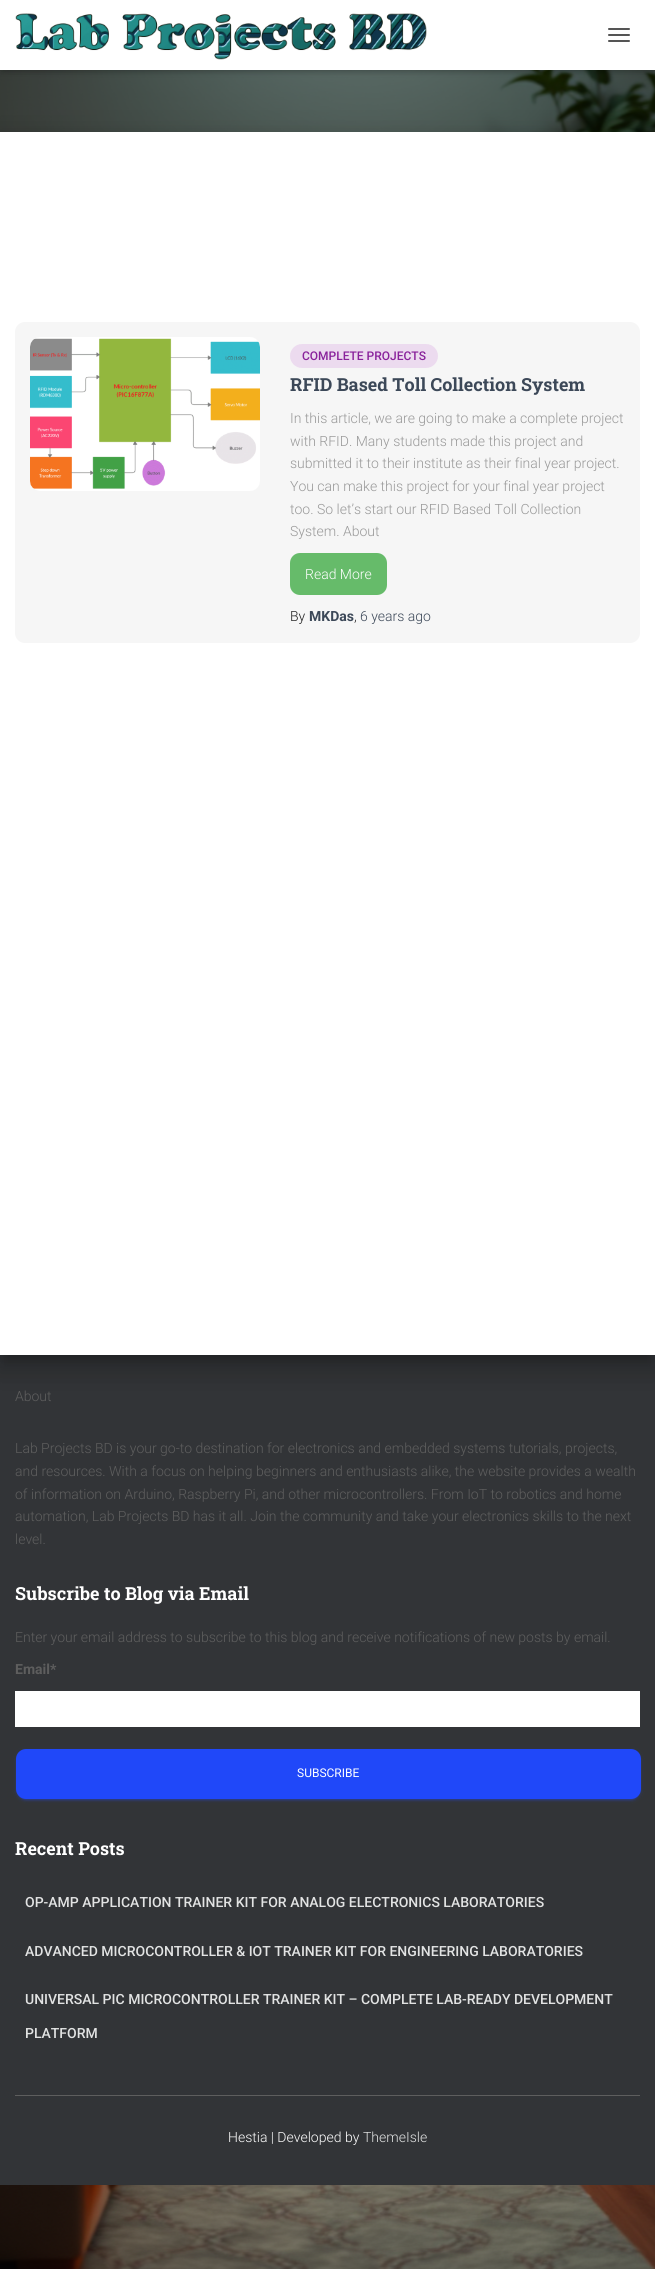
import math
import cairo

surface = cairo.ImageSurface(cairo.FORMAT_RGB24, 655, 2269)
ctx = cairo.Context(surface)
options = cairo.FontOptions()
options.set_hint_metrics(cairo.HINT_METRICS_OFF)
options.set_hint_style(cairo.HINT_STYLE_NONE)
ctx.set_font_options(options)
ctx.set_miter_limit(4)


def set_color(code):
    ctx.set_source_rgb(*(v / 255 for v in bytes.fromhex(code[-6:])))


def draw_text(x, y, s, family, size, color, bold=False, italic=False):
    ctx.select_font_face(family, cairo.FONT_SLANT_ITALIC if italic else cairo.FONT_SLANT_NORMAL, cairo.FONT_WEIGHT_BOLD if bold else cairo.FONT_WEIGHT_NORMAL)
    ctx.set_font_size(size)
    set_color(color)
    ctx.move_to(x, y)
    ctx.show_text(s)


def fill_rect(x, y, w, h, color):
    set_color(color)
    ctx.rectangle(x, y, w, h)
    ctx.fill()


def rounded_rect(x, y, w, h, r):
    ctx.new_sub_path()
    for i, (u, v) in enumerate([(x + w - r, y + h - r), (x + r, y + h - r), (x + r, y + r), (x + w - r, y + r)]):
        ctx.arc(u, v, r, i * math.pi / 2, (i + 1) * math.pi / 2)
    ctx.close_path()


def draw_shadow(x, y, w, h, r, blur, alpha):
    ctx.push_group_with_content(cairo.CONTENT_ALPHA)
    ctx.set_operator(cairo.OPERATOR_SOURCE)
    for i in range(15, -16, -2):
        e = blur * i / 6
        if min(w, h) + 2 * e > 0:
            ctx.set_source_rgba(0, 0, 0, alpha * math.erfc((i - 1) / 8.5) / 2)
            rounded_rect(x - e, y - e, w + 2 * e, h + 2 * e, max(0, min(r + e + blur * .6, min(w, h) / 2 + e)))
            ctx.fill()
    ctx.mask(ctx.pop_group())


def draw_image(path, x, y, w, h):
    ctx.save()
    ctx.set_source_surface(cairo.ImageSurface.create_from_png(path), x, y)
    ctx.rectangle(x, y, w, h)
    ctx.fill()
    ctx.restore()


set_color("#ffffff")
ctx.paint()
draw_image("assets/img1.png", 0, 70, 655, 2199)
ctx.set_source_rgba(0, 0, 0, 0.5)
ctx.rectangle(0, 70, 655, 62)
ctx.fill()
set_color("#000000")
draw_shadow(2, 6, 651, 66, 0, 2.5, 0.1)
draw_shadow(0, 1, 655, 70, 0, 5, 0.12)
draw_shadow(6, 7, 643, 58, 0, 5, 0.42)
fill_rect(0, 0, 655, 70, "#ffffff")
draw_image("assets/img2.png", 15, 13, 412, 47)
set_color("#555555")
rounded_rect(608, 28, 22, 2, 1)
ctx.fill()
rounded_rect(608, 34, 22, 2, 1)
ctx.fill()
rounded_rect(608, 40, 22, 2, 1)
ctx.fill()
fill_rect(0, 1355, 655, 830, "#323437")
set_color("#000000")
draw_shadow(5, 145, 645, 1213, 0, 5, 0.2)
draw_shadow(-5, 133, 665, 1233, 0, 15, 0.12)
draw_shadow(-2, 146, 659, 1227, 0, 12, 0.14)
fill_rect(0, 132, 655, 1223, "#ffffff")
set_color("#f6f6f6")
rounded_rect(15, 322, 625, 321, 10)
ctx.fill()
draw_image("assets/img3.png", 30, 337, 230, 154)
set_color("#ecdbef")
rounded_rect(290, 344, 148, 24, 12)
ctx.fill()
draw_text(302, 360, "COMPLETE PROJECTS", "Roboto Medium", 12, "#89229b")
draw_text(290, 391, "RFID Based Toll Collection System", "Roboto Slab", 18, "#3c4858", bold=True)
draw_text(290, 423, "In this article, we are going to make a complete project", "Roboto Light", 14, "#999999")
draw_text(290, 446, "with RFID. Many students made this project and", "Roboto Light", 14, "#999999")
draw_text(290, 468, "submitted it to their institute as their final year project.", "Roboto Light", 14, "#999999")
draw_text(290, 491, "You can make this project for your final year project", "Roboto Light", 14, "#999999")
draw_text(290, 514, "too. So let’s start our RFID Based Toll Collection", "Roboto Light", 14, "#999999")
draw_text(290, 536, "System. About", "Roboto Light", 14, "#999999")
set_color("#66bb6a")
rounded_rect(290, 553, 97, 42, 10)
ctx.fill()
draw_text(305, 579, "Read More", "Roboto Light", 14, "#ffffff")
draw_text(290, 621, "By", "Roboto Light", 14, "#202020")
draw_text(309, 621, "MKDas", "Roboto", 14, "#3c4858", bold=True)
draw_text(354, 621, ",", "Roboto Light", 14, "#202020")
draw_text(360, 621, "6 years ago", "Roboto Light", 14, "#3c4858")
draw_text(15, 1401, "About", "Roboto Light", 14, "#5e5e5e")
draw_text(15, 1453, "Lab Projects BD is your go-to destination for electronics and embedded systems tutorials, projects,", "Roboto Light", 14, "#5e5e5e")
draw_text(15, 1476, "and resources. With a focus on helping beginners and enthusiasts alike, the website provides a wealth", "Roboto Light", 14, "#5e5e5e")
draw_text(15, 1499, "of information on Arduino, Raspberry Pi, and other microcontrollers. From IoT to robotics and home", "Roboto Light", 14, "#5e5e5e")
draw_text(15, 1521, "automation, Lab Projects BD has it all. Join the community and take your electronics skills to the next", "Roboto Light", 14, "#5e5e5e")
draw_text(15, 1544, "level.", "Roboto Light", 14, "#5e5e5e")
draw_text(15, 1600, "Subscribe to Blog via Email", "Roboto Slab", 18, "#ffffff", bold=True)
draw_text(15, 1642, "Enter your email address to subscribe to this blog and receive notifications of new posts by email.", "Roboto Light", 14, "#5e5e5e")
draw_text(15, 1674, "Email*", "Roboto", 14, "#5e5e5e", bold=True)
fill_rect(15, 1691, 625, 36, "#ffffff")
set_color("#2048f9")
draw_shadow(16, 1750, 625, 50, 10, 2.5, 0.12)
draw_shadow(18, 1754, 621, 46, 8, 0.5, 0.2)
draw_shadow(16, 1751, 625, 50, 10, 1, 0.14)
set_color("#2048f9")
rounded_rect(16, 1749, 625, 50, 10)
ctx.fill()
draw_text(297, 1777, "SUBSCRIBE", "Roboto", 12, "#ffffff")
draw_text(15, 1855, "Recent Posts", "Roboto Slab", 18, "#ffffff", bold=True)
draw_text(25, 1907, "OP-AMP APPLICATION TRAINER KIT FOR ANALOG ELECTRONICS LABORATORIES", "Roboto Medium", 14, "#e2e3e3")
draw_text(25, 1956, "ADVANCED MICROCONTROLLER & IOT TRAINER KIT FOR ENGINEERING LABORATORIES", "Roboto Medium", 14, "#e2e3e3")
draw_text(25, 2004, "UNIVERSAL PIC MICROCONTROLLER TRAINER KIT – COMPLETE LAB-READY DEVELOPMENT", "Roboto Medium", 14, "#e2e3e3")
draw_text(25, 2038, "PLATFORM", "Roboto Medium", 14, "#e2e3e3")
fill_rect(15, 2095, 625, 1, "#5e5e5e")
draw_text(228, 2142, "Hestia | Developed by", "Roboto Light", 14, "#ffffff")
draw_text(363, 2142, "ThemeIsle", "Roboto Light", 14, "#e2e3e3")
surface.write_to_png("output.png")
